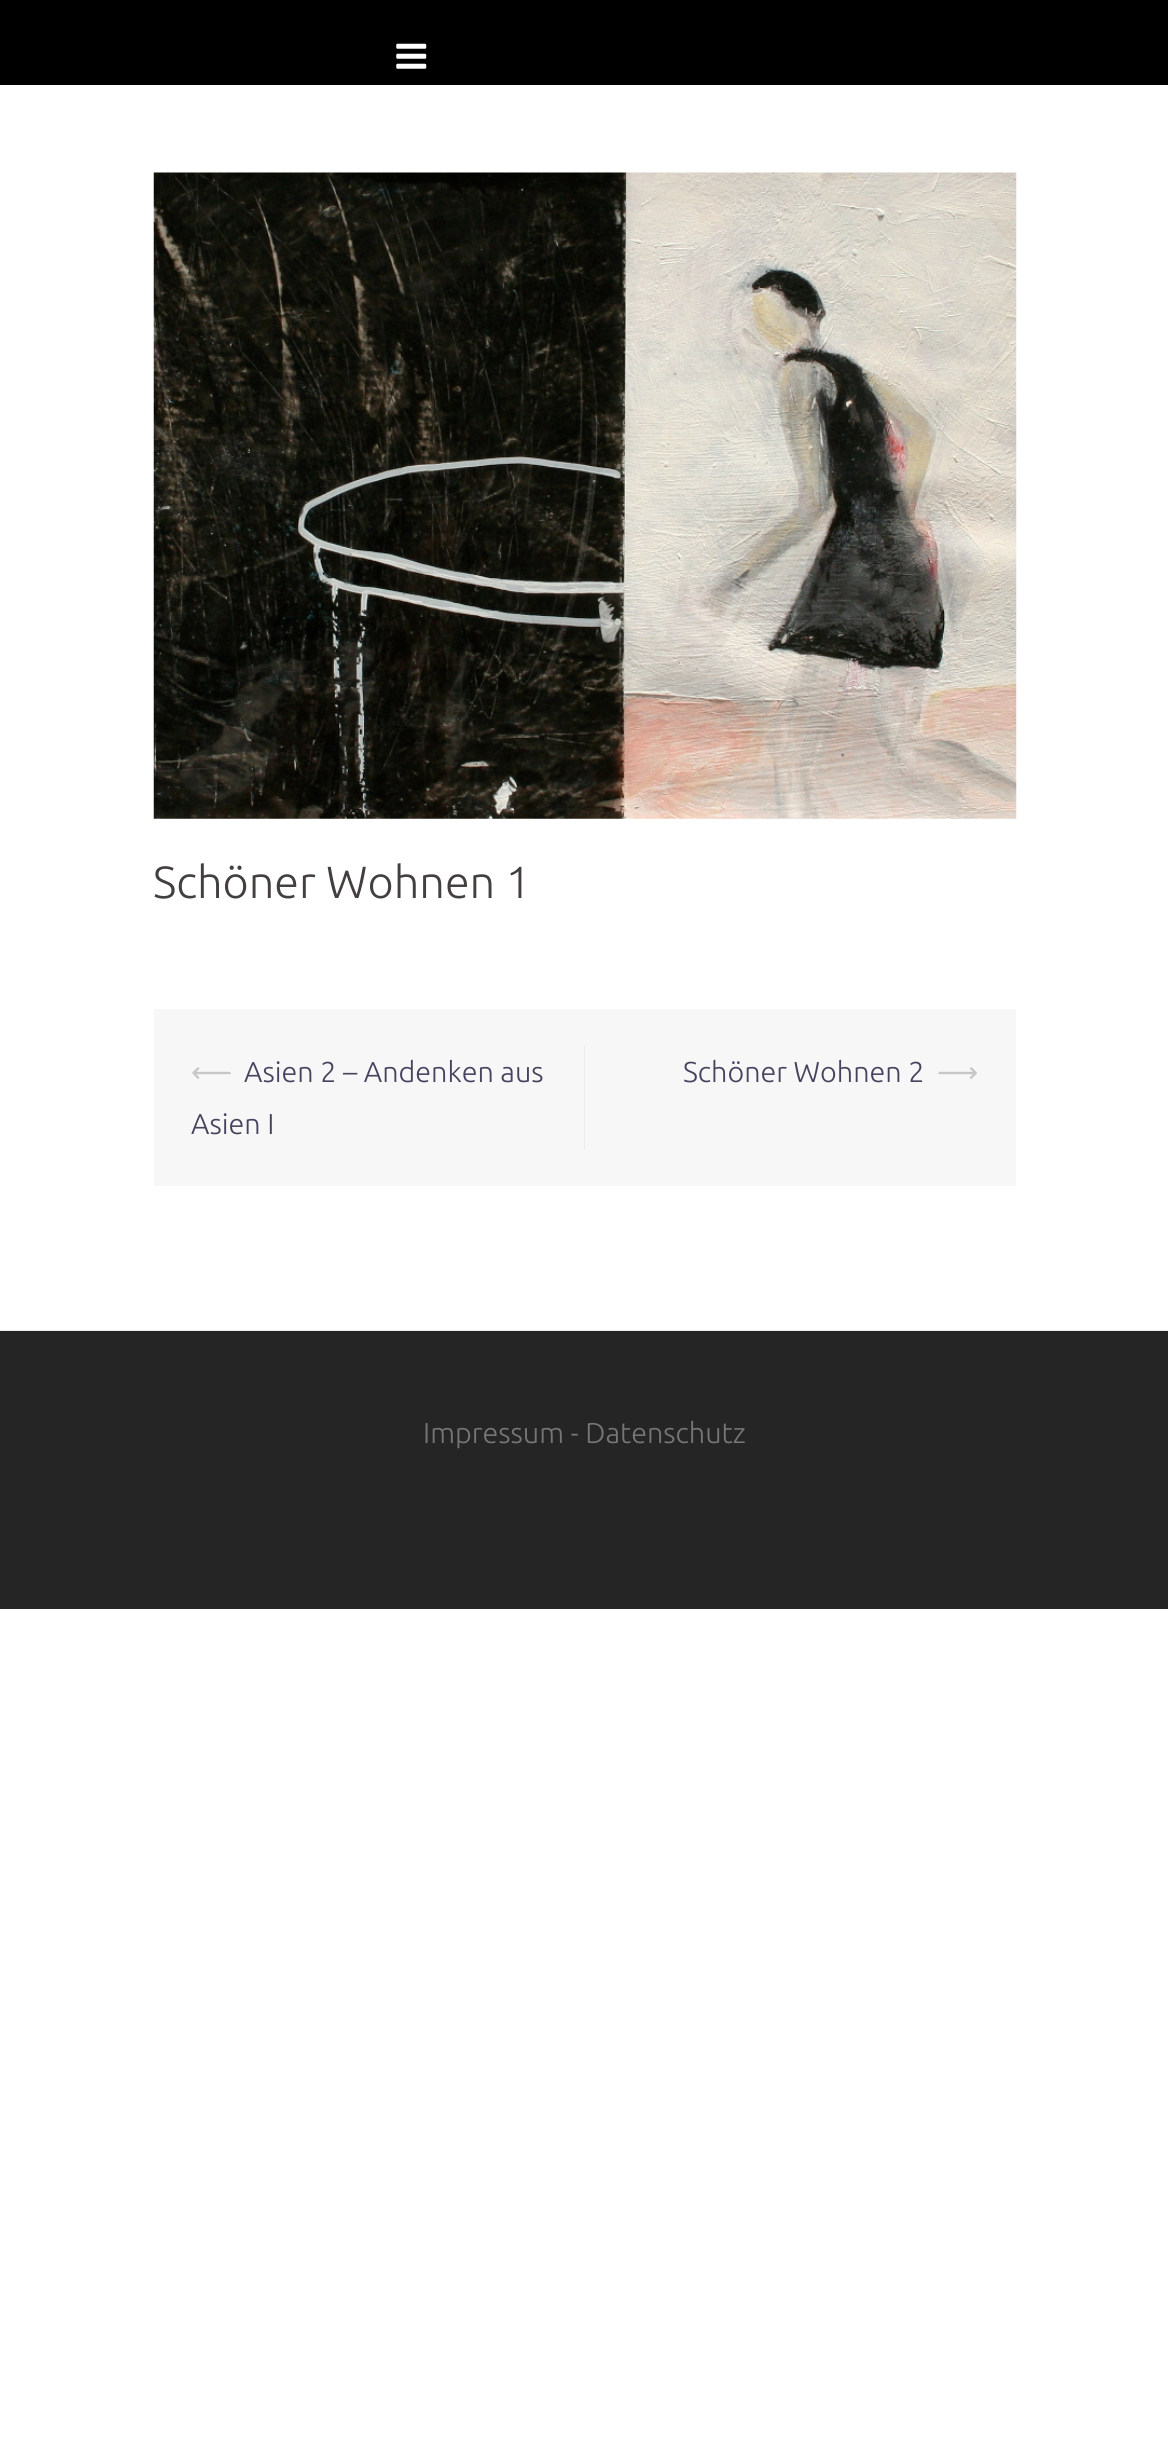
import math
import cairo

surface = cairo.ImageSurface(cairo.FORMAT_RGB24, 1168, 2461)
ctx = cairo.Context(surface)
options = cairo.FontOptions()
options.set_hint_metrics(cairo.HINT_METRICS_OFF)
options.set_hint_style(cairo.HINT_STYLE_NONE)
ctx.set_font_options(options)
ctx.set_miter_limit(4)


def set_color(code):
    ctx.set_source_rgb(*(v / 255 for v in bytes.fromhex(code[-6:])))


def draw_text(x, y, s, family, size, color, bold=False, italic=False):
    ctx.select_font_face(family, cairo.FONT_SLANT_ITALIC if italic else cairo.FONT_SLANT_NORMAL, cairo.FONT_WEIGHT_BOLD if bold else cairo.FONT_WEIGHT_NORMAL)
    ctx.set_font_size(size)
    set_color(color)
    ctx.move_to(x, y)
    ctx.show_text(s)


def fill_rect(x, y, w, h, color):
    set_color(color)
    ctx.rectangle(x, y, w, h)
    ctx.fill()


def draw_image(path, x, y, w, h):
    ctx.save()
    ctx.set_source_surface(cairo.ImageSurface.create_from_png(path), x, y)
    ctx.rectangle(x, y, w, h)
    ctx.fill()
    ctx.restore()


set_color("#ffffff")
ctx.paint()
fill_rect(0, 0, 1168, 85, "#000000")
draw_image("assets/img1.png", 396, 43, 31, 26)
draw_image("assets/img2.png", 153, 172, 864, 647)
draw_text(153, 898, "Schöner Wohnen 1", "Ubuntu Light", 45, "#443f3f")
fill_rect(154, 1009, 862, 177, "#f7f7f7")
fill_rect(584, 1046, 1, 103, "#ebebeb")
draw_text(191, 1082, "⟵", "DejaVu Sans", 28.75, "#c7c7c7")
draw_text(244, 1082, "Asien 2 – Andenken aus", "Ubuntu Light", 28.75, "#47425d")
draw_text(191, 1134, "Asien I", "Ubuntu Light", 28.75, "#47425d")
draw_text(683, 1082, "Schöner Wohnen 2", "Ubuntu Light", 28.75, "#47425d")
draw_text(937, 1082, "⟶", "DejaVu Sans", 28.75, "#c7c7c7")
fill_rect(0, 1331, 1168, 278, "#252525")
fill_rect(0, 1330, 1168, 1, "#ebebeb")
draw_text(423, 1443, "Impressum - Datenschutz", "Ubuntu Light", 28.75, "#767676")
surface.write_to_png("output.png")
